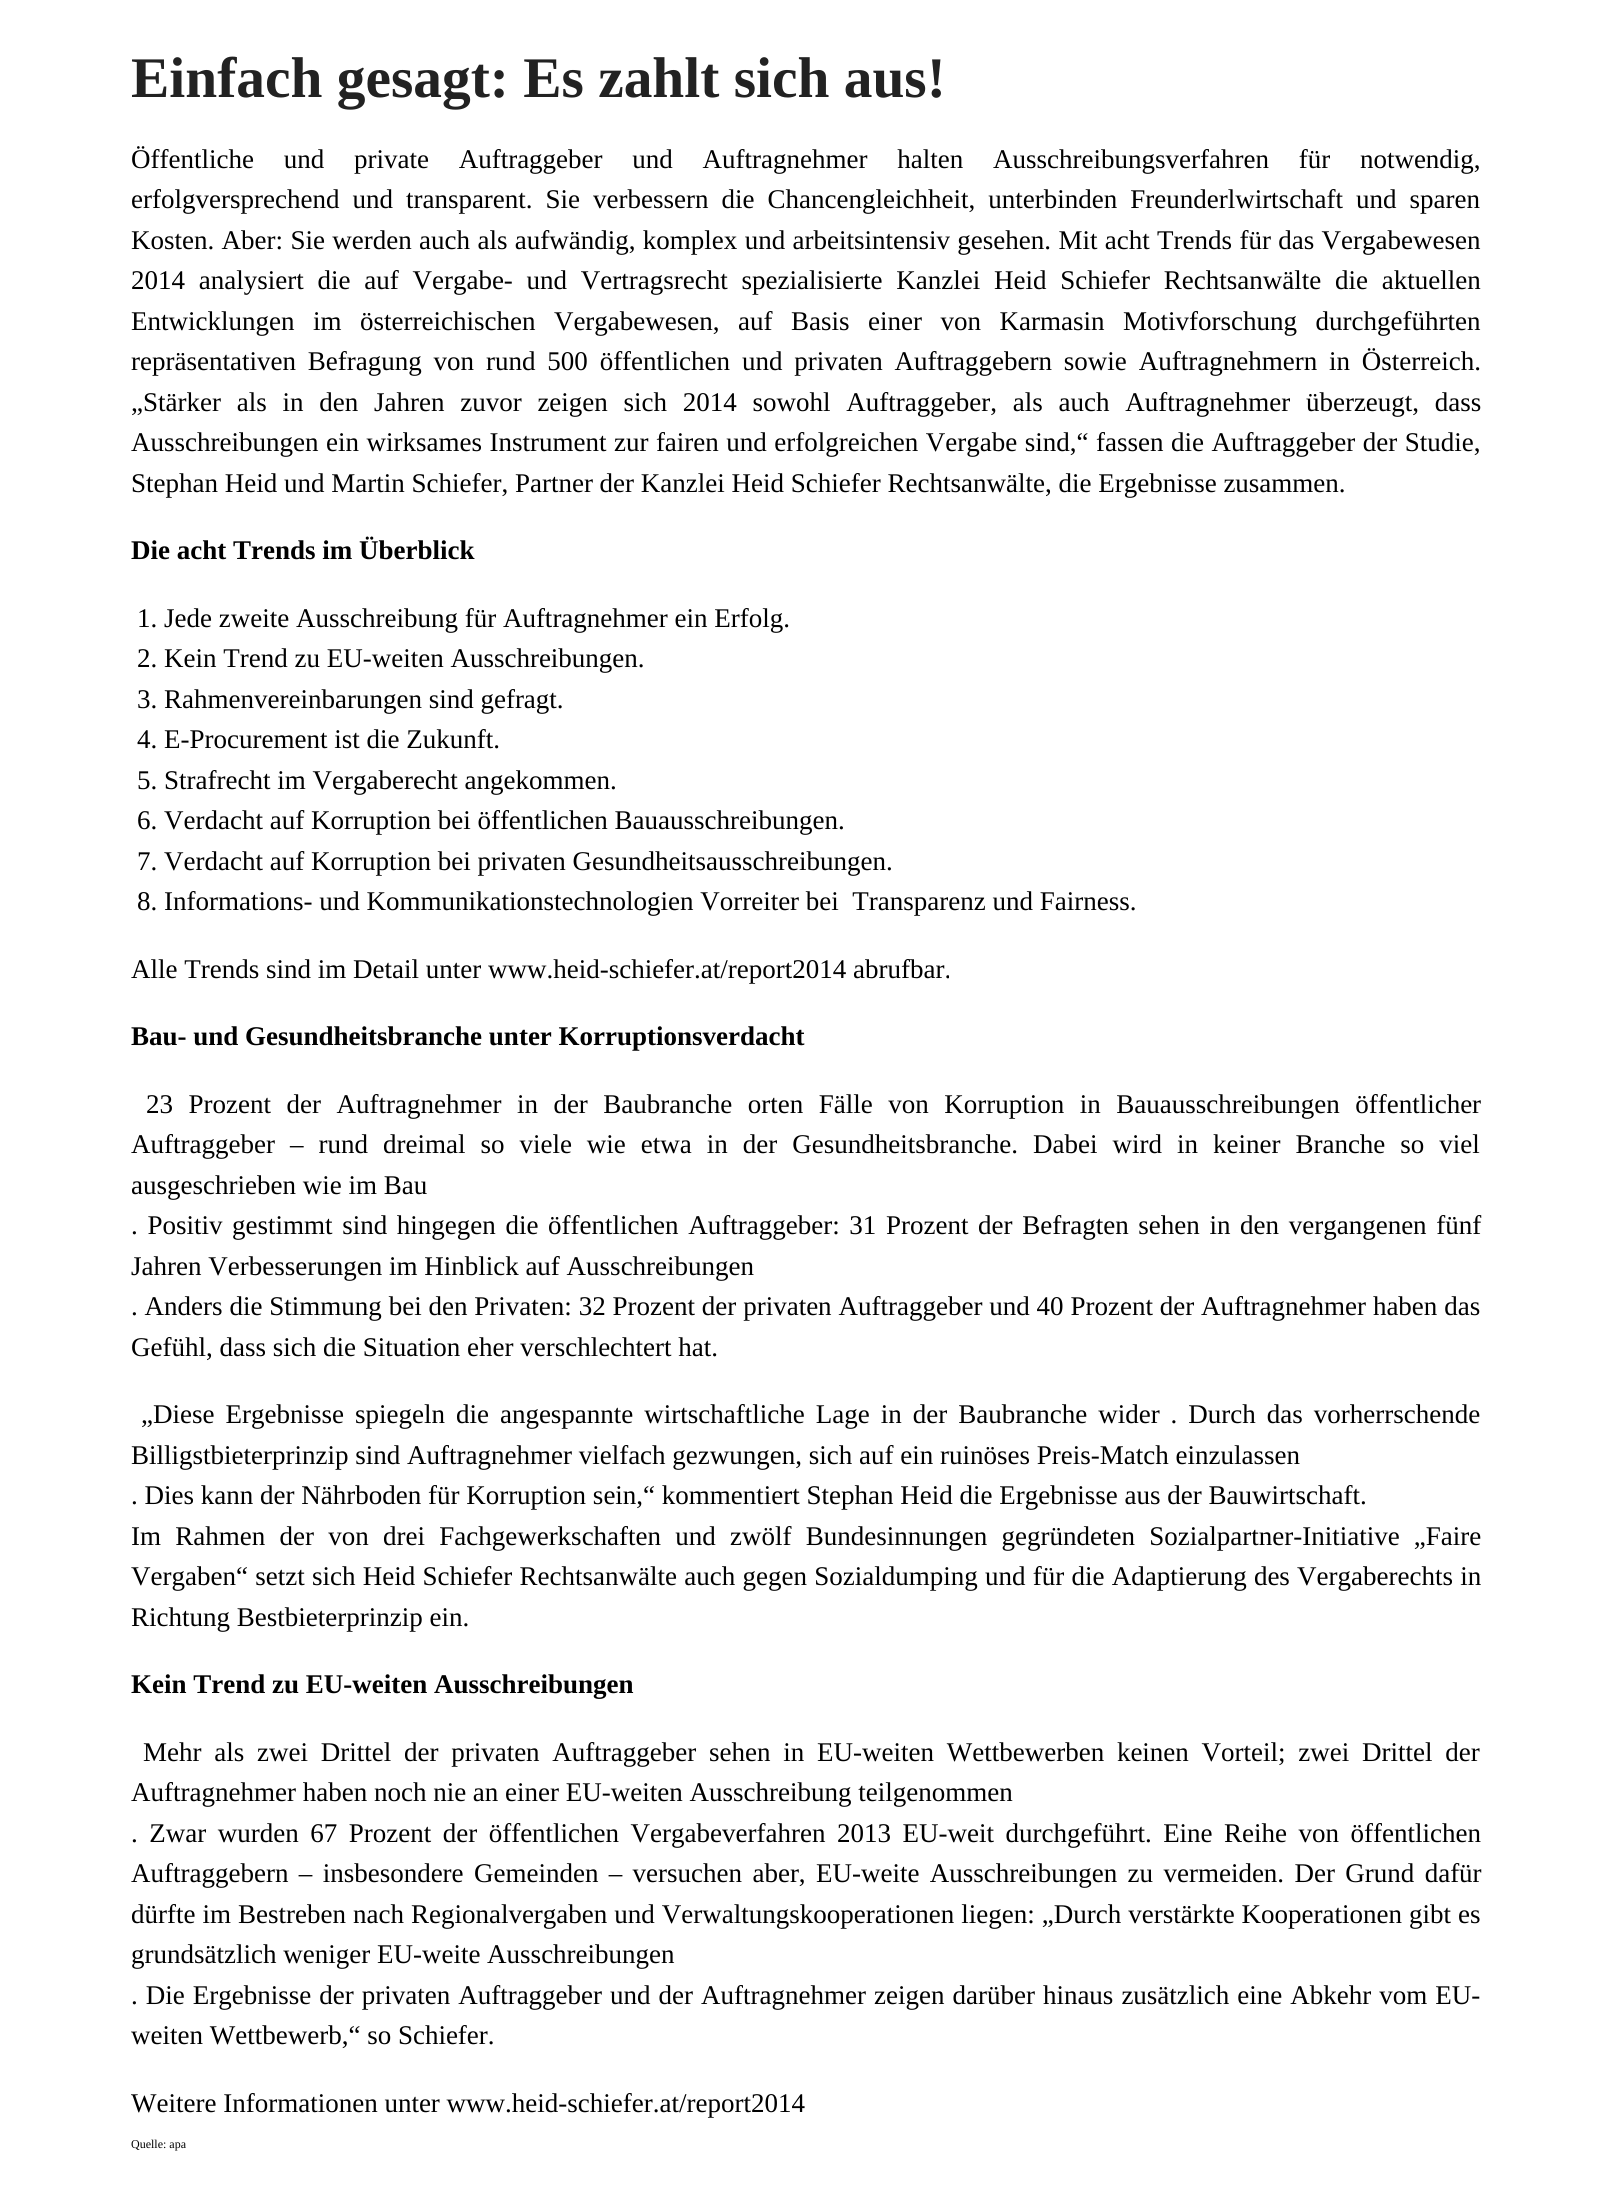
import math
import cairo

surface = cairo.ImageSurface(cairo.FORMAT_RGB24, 1610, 2185)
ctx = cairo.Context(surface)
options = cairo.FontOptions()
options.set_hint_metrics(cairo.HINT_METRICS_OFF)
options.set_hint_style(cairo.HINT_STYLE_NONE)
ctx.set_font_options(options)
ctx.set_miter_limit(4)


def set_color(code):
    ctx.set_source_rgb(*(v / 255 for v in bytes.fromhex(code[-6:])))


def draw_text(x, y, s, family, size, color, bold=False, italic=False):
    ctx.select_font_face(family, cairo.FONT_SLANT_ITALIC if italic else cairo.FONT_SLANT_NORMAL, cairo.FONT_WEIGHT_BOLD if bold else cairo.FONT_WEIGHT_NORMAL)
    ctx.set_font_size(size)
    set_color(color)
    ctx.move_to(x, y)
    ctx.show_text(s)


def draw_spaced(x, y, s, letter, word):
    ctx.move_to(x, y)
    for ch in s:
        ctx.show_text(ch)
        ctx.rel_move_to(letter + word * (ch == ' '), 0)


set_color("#ffffff")
ctx.paint()
draw_text(131, 97, "Einfach gesagt: Es zahlt sich aus!", "Liberation Serif", 57.4, "#222222", bold=True)
ctx.select_font_face("Liberation Serif")
ctx.set_font_size(27)
set_color("#000000")
draw_spaced(131, 168, "Öffentliche und private Auftraggeber und Auftragnehmer halten Ausschreibungsverfahren für notwendig,", 0, 23)
draw_spaced(131, 208, "erfolgversprechend und transparent. Sie verbessern die Chancengleichheit, unterbinden Freunderlwirtschaft und sparen", 0, 6.25)
draw_spaced(131, 249, "Kosten. Aber: Sie werden auch als aufwändig, komplex und arbeitsintensiv gesehen. Mit acht Trends für das Vergabewesen", 0, 0.6)
draw_spaced(131, 289, "2014 analysiert die auf Vergabe- und Vertragsrecht spezialisierte Kanzlei Heid Schiefer Rechtsanwälte die aktuellen", 0, 7)
draw_spaced(131, 330, "Entwicklungen im österreichischen Vergabewesen, auf Basis einer von Karmasin Motivforschung durchgeführten", 0, 11.75)
draw_spaced(131, 370, "repräsentativen Befragung von rund 500 öffentlichen und privaten Auftraggebern sowie Auftragnehmern in Österreich.", 0, 5.1)
draw_spaced(131, 411, "„Stärker als in den Jahren zuvor zeigen sich 2014 sowohl Auftraggeber, als auch Auftragnehmer überzeugt, dass", 0, 9)
draw_spaced(131, 451, "Ausschreibungen ein wirksames Instrument zur fairen und erfolgreichen Vergabe sind,“ fassen die Auftraggeber der Studie,", 0, 0.75)
draw_text(131, 492, "Stephan Heid und Martin Schiefer, Partner der Kanzlei Heid Schiefer Rechtsanwälte, die Ergebnisse zusammen.", "Liberation Serif", 27, "#000000")
draw_text(131, 559, "Die acht Trends im Überblick", "Liberation Serif", 27, "#000000", bold=True)
draw_text(137, 627, "1. Jede zweite Ausschreibung für Auftragnehmer ein Erfolg.", "Liberation Serif", 27, "#000000")
draw_text(137, 667, "2. Kein Trend zu EU-weiten Ausschreibungen.", "Liberation Serif", 27, "#000000")
draw_text(137, 708, "3. Rahmenvereinbarungen sind gefragt.", "Liberation Serif", 27, "#000000")
draw_text(137, 748, "4. E-Procurement ist die Zukunft.", "Liberation Serif", 27, "#000000")
draw_text(137, 789, "5. Strafrecht im Vergaberecht angekommen.", "Liberation Serif", 27, "#000000")
draw_text(137, 829, "6. Verdacht auf Korruption bei öffentlichen Bauausschreibungen.", "Liberation Serif", 27, "#000000")
draw_text(137, 870, "7. Verdacht auf Korruption bei privaten Gesundheitsausschreibungen.", "Liberation Serif", 27, "#000000")
draw_text(137, 910, "8. Informations- und Kommunikationstechnologien Vorreiter bei  Transparenz und Fairness.", "Liberation Serif", 27, "#000000")
draw_text(131, 978, "Alle Trends sind im Detail unter www.heid-schiefer.at/report2014 abrufbar.", "Liberation Serif", 27, "#000000")
draw_text(131, 1045, "Bau- und Gesundheitsbranche unter Korruptionsverdacht", "Liberation Serif", 27, "#000000", bold=True)
ctx.select_font_face("Liberation Serif")
draw_spaced(146, 1113, "23 Prozent der Auftragnehmer in der Baubranche orten Fälle von Korruption in Bauausschreibungen öffentlicher", 0, 8.75)
draw_spaced(131, 1153, "Auftraggeber – rund dreimal so viele wie etwa in der Gesundheitsbranche. Dabei wird in keiner Branche so viel", 0, 8.25)
draw_text(131, 1194, "ausgeschrieben wie im Bau", "Liberation Serif", 27, "#000000")
draw_spaced(131, 1234, ". Positiv gestimmt sind hingegen die öffentlichen Auftraggeber: 31 Prozent der Befragten sehen in den vergangenen fünf", 0, 2.9)
draw_text(131, 1275, "Jahren Verbesserungen im Hinblick auf Ausschreibungen", "Liberation Serif", 27, "#000000")
draw_spaced(131, 1315, ". Anders die Stimmung bei den Privaten: 32 Prozent der privaten Auftraggeber und 40 Prozent der Auftragnehmer haben das", 0, 0.1)
draw_text(131, 1356, "Gefühl, dass sich die Situation eher verschlechtert hat.", "Liberation Serif", 27, "#000000")
draw_spaced(141, 1423, "„Diese Ergebnisse spiegeln die angespannte wirtschaftliche Lage in der Baubranche wider . Durch das vorherrschende", 0, 4.25)
draw_text(131, 1464, "Billigstbieterprinzip sind Auftragnehmer vielfach gezwungen, sich auf ein ruinöses Preis-Match einzulassen", "Liberation Serif", 27, "#000000")
draw_text(131, 1504, ". Dies kann der Nährboden für Korruption sein,“ kommentiert Stephan Heid die Ergebnisse aus der Bauwirtschaft.", "Liberation Serif", 27, "#000000")
draw_spaced(131, 1545, "Im Rahmen der von drei Fachgewerkschaften und zwölf Bundesinnungen gegründeten Sozialpartner-Initiative „Faire", 0, 7.5)
draw_spaced(131, 1585, "Vergaben“ setzt sich Heid Schiefer Rechtsanwälte auch gegen Sozialdumping und für die Adaptierung des Vergaberechts in", 0, 0.5)
draw_text(131, 1626, "Richtung Bestbieterprinzip ein.", "Liberation Serif", 27, "#000000")
draw_text(131, 1693, "Kein Trend zu EU-weiten Ausschreibungen", "Liberation Serif", 27, "#000000", bold=True)
ctx.select_font_face("Liberation Serif")
draw_spaced(143, 1761, "Mehr als zwei Drittel der privaten Auftraggeber sehen in EU-weiten Wettbewerben keinen Vorteil; zwei Drittel der", 0, 6)
draw_text(131, 1801, "Auftragnehmer haben noch nie an einer EU-weiten Ausschreibung teilgenommen", "Liberation Serif", 27, "#000000")
draw_spaced(131, 1842, ". Zwar wurden 67 Prozent der öffentlichen Vergabeverfahren 2013 EU-weit durchgeführt. Eine Reihe von öffentlichen", 0, 4.75)
draw_spaced(131, 1882, "Auftraggebern – insbesondere Gemeinden – versuchen aber, EU-weite Ausschreibungen zu vermeiden. Der Grund dafür", 0, 3.6)
draw_spaced(131, 1923, "dürfte im Bestreben nach Regionalvergaben und Verwaltungskooperationen liegen: „Durch verstärkte Kooperationen gibt es", 0, 0.25)
draw_text(131, 1963, "grundsätzlich weniger EU-weite Ausschreibungen", "Liberation Serif", 27, "#000000")
draw_spaced(131, 2004, ". Die Ergebnisse der privaten Auftraggeber und der Auftragnehmer zeigen darüber hinaus zusätzlich eine Abkehr vom EU-", 0, 1.25)
draw_text(131, 2044, "weiten Wettbewerb,“ so Schiefer.", "Liberation Serif", 27, "#000000")
draw_text(131, 2112, "Weitere Informationen unter www.heid-schiefer.at/report2014", "Liberation Serif", 27, "#000000")
draw_text(131, 2148, "Quelle: apa", "Liberation Serif", 12, "#000000")
surface.write_to_png("output.png")
